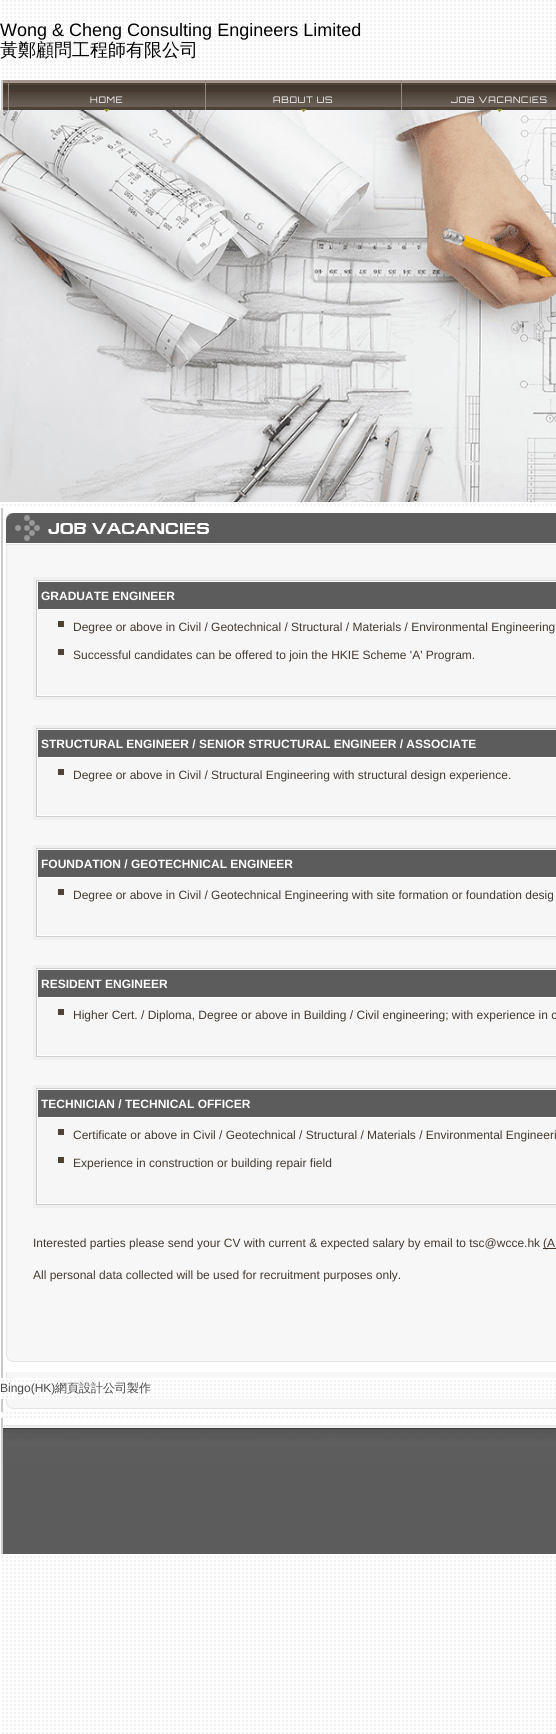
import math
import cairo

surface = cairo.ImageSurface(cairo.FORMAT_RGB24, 556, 1734)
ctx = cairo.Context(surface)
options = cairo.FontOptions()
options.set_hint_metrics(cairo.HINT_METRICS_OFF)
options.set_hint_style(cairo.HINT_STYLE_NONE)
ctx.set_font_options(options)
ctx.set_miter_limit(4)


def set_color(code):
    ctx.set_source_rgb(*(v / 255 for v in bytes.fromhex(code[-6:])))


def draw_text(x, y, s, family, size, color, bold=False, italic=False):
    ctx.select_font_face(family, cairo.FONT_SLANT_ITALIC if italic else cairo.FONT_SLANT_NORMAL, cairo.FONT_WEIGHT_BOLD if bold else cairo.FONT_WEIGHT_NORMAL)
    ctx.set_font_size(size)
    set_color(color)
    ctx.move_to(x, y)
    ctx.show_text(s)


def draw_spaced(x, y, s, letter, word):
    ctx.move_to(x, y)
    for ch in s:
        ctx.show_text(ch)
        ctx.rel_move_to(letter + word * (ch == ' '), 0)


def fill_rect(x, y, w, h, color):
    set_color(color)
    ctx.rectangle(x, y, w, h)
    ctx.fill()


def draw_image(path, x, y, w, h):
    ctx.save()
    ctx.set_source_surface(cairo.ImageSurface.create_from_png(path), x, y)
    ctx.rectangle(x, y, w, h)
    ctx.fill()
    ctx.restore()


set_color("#ffffff")
ctx.paint()
draw_image("assets/img1.png", 2, 0, 554, 1734)
draw_text(0, 36, "Wong & Cheng Consulting Engineers Limited", "Liberation Sans", 18, "#000000")
draw_text(0, 56, "黃鄭顧問工程師有限公司", "WenQuanYi Zen Hei Medium", 18, "#000000")
draw_image("assets/img2.png", 3, 80, 553, 30)
fill_rect(1, 80, 2, 30, "#cacaca")
fill_rect(205, 80, 1, 30, "#908881")
fill_rect(8, 80, 1, 30, "#908881")
ctx.select_font_face("Orbitron")
ctx.set_font_size(9)
set_color("#ffffff")
draw_spaced(90, 103, "HOME", 0.75, 0)
draw_image("assets/img6.png", 0, 110, 556, 392)
draw_image("assets/img3.png", 104, 109, 6, 3)
fill_rect(401, 80, 1, 30, "#908881")
set_color("#ffffff")
draw_spaced(273, 103, "ABOUT US", 0.75, 0)
draw_image("assets/img4.png", 301, 109, 6, 3)
draw_spaced(451, 103, "JOB VACANCIES", 0.75, 0)
draw_image("assets/img5.png", 497, 109, 6, 3)
draw_image("assets/img7.png", 1, 508, 555, 870)
draw_image("assets/img8.png", 6, 508, 550, 37)
fill_rect(33, 577, 523, 123, "#efefef")
fill_rect(36, 580, 520, 117, "#cecece")
fill_rect(37, 581, 519, 115, "#ffffff")
fill_rect(38, 582, 518, 27, "#5c5c5c")
draw_text(41, 600, "GRADUATE ENGINEER", "Liberation Sans", 12, "#ffffff", bold=True)
fill_rect(38, 610, 518, 85, "#f6f6f6")
fill_rect(58, 621, 6, 6, "#4e4236")
draw_text(73, 631, "Degree or above in Civil / Geotechnical / Structural / Materials / Environmental Engineering", "Liberation Sans", 12, "#44392f")
fill_rect(58, 649, 6, 6, "#4e4236")
draw_text(73, 659, "Successful candidates can be offered to join the HKIE Scheme 'A' Program.", "Liberation Sans", 12, "#44392f")
fill_rect(33, 725, 523, 95, "#efefef")
fill_rect(36, 728, 520, 89, "#cecece")
fill_rect(37, 729, 519, 87, "#ffffff")
fill_rect(38, 730, 518, 27, "#5c5c5c")
draw_text(41, 748, "STRUCTURAL ENGINEER / SENIOR STRUCTURAL ENGINEER / ASSOCIATE", "Liberation Sans", 12, "#ffffff", bold=True)
fill_rect(38, 758, 518, 57, "#f6f6f6")
fill_rect(58, 769, 6, 6, "#4e4236")
draw_text(73, 779, "Degree or above in Civil / Structural Engineering with structural design experience.", "Liberation Sans", 12, "#44392f")
fill_rect(33, 845, 523, 95, "#efefef")
fill_rect(36, 848, 520, 89, "#cecece")
fill_rect(37, 849, 519, 87, "#ffffff")
fill_rect(38, 850, 518, 27, "#5c5c5c")
draw_text(41, 868, "FOUNDATION / GEOTECHNICAL ENGINEER", "Liberation Sans", 12, "#ffffff", bold=True)
fill_rect(38, 878, 518, 57, "#f6f6f6")
fill_rect(58, 889, 6, 6, "#4e4236")
draw_text(73, 899, "Degree or above in Civil / Geotechnical Engineering with site formation or foundation desig", "Liberation Sans", 12, "#44392f")
fill_rect(33, 965, 523, 95, "#efefef")
fill_rect(36, 968, 520, 89, "#cecece")
fill_rect(37, 969, 519, 87, "#ffffff")
fill_rect(38, 970, 518, 27, "#5c5c5c")
draw_text(41, 988, "RESIDENT ENGINEER", "Liberation Sans", 12, "#ffffff", bold=True)
fill_rect(38, 998, 518, 57, "#f6f6f6")
fill_rect(58, 1009, 6, 6, "#4e4236")
draw_text(73, 1019, "Higher Cert. / Diploma, Degree or above in Building / Civil engineering; with experience in c", "Liberation Sans", 12, "#44392f")
fill_rect(33, 1085, 523, 123, "#efefef")
fill_rect(36, 1088, 520, 117, "#cecece")
fill_rect(37, 1089, 519, 115, "#ffffff")
fill_rect(38, 1090, 518, 27, "#5c5c5c")
draw_text(41, 1108, "TECHNICIAN / TECHNICAL OFFICER", "Liberation Sans", 12, "#ffffff", bold=True)
fill_rect(38, 1118, 518, 85, "#f6f6f6")
fill_rect(58, 1129, 6, 6, "#4e4236")
draw_text(73, 1139, "Certificate or above in Civil / Geotechnical / Structural / Materials / Environmental Engineeri", "Liberation Sans", 12, "#44392f")
fill_rect(58, 1157, 6, 6, "#4e4236")
draw_text(73, 1167, "Experience in construction or building repair field", "Liberation Sans", 12, "#44392f")
draw_text(33, 1247, "Interested parties please send your CV with current & expected salary by email to tsc@wcce.hk", "Liberation Sans", 12, "#44392f")
fill_rect(543, 1248, 13, 1, "#44392f")
draw_text(543, 1247, "(A", "Liberation Sans", 12, "#44392f")
draw_text(33, 1279, "All personal data collected will be used for recruitment purposes only.", "Liberation Sans", 12, "#44392f")
draw_image("assets/img9.png", 6, 1356, 550, 16)
draw_text(0, 1392, "Bingo(HK)", "Liberation Sans", 12, "#484848")
draw_text(55, 1392, "網頁設計公司製作", "WenQuanYi Zen Hei Medium", 12, "#484848")
draw_image("assets/img10.png", 1, 1399, 555, 13)
draw_image("assets/img11.png", 0, 1418, 556, 136)
surface.write_to_png("output.png")
